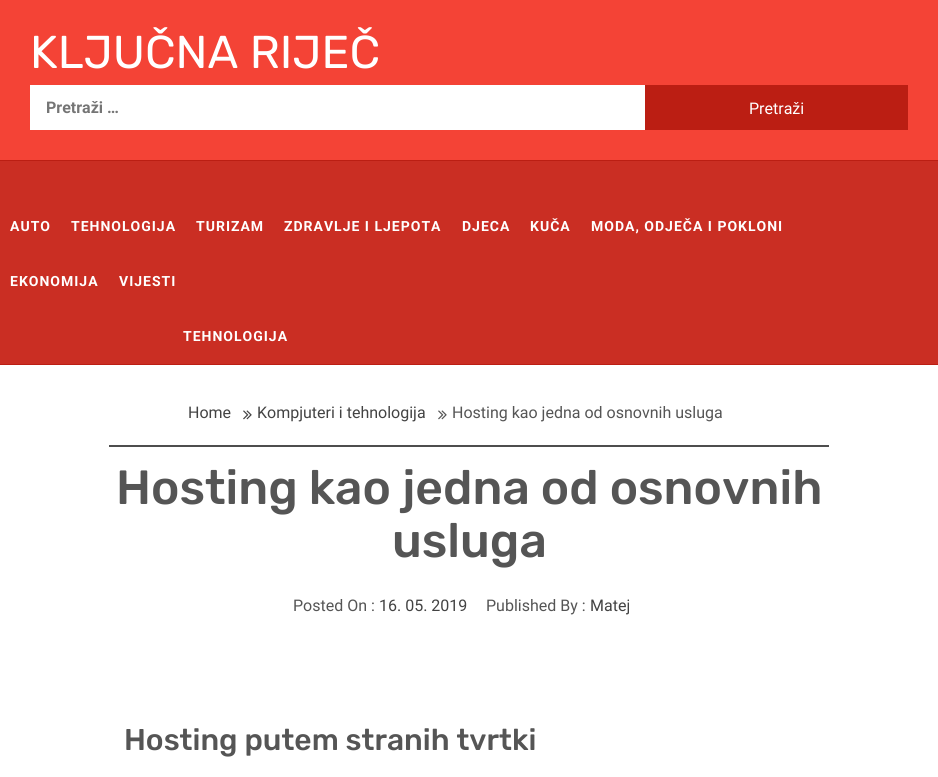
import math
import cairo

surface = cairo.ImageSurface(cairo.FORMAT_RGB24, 938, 777)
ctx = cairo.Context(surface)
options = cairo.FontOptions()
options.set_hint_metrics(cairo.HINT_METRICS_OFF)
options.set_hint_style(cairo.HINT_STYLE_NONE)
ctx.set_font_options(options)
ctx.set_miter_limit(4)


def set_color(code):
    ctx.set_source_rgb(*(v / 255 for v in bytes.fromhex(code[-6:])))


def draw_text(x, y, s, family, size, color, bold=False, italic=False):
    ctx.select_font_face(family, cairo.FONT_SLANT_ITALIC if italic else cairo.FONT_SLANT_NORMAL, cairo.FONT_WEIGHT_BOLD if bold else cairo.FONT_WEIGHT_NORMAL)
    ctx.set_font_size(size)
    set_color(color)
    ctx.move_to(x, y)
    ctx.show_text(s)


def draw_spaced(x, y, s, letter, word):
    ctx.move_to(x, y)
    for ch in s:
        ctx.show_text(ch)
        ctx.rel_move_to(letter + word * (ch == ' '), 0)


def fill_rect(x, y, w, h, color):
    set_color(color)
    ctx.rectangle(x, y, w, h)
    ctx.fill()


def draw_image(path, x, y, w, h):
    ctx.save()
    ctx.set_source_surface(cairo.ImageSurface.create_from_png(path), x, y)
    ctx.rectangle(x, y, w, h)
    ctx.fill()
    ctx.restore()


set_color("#ffffff")
ctx.paint()
fill_rect(0, 0, 938, 160, "#f44336")
draw_text(30, 68, "KLJUČNA RIJEČ", "Rubik", 46, "#ffffff")
fill_rect(30, 85, 615, 45, "#ffffff")
draw_text(46, 113, "Pretraži …", "Roboto", 16, "#757575", bold=True)
fill_rect(645, 85, 263, 45, "#bb1e13")
draw_text(749, 114, "Pretraži", "Roboto", 16, "#ffffff")
fill_rect(0, 161, 938, 203, "#ca2e23")
fill_rect(0, 160, 938, 1, "#bb1e13")
fill_rect(0, 364, 938, 1, "#bb1e13")
ctx.select_font_face("Roboto", cairo.FONT_SLANT_NORMAL, cairo.FONT_WEIGHT_BOLD)
ctx.set_font_size(14)
set_color("#ffffff")
draw_spaced(10, 231, "AUTO", 1, 0)
draw_spaced(71, 231, "TEHNOLOGIJA", 1, 0)
draw_spaced(196, 231, "TURIZAM", 1, 0)
draw_spaced(284, 231, "ZDRAVLJE I LJEPOTA", 1, 0)
draw_spaced(462, 231, "DJECA", 1, 0)
draw_spaced(530, 231, "KUČA", 1, 0)
draw_spaced(591, 231, "MODA, ODJEČA I POKLONI", 1, 0)
draw_spaced(10, 286, "EKONOMIJA", 1, 0)
draw_spaced(119, 286, "VIJESTI", 1, 0)
draw_spaced(183, 341, "TEHNOLOGIJA", 1, 0)
fill_rect(109, 445, 720, 2, "#4e4e4e")
draw_text(188, 418, "Home", "Roboto", 16, "#434343")
draw_image("assets/img1.png", 243, 410, 9, 10)
draw_text(257, 418, "Kompjuteri i tehnologija", "Roboto", 16, "#434343")
draw_image("assets/img2.png", 438, 410, 9, 10)
draw_text(452, 418, "Hosting kao jedna od osnovnih usluga", "Roboto", 16, "#555555")
draw_text(116, 504, "Hosting kao jedna od osnovnih", "Rubik Medium", 48, "#555555")
draw_text(392, 557, "usluga", "Rubik Medium", 48, "#555555")
draw_text(293, 611, "Posted On :", "Roboto", 16, "#555555")
draw_text(379, 611, "16. 05. 2019", "Roboto", 16, "#434343")
draw_text(486, 611, "Published By :", "Roboto", 16, "#555555")
draw_text(590, 611, "Matej", "Roboto", 16, "#434343")
draw_text(124, 750, "Hosting putem stranih tvrtki", "Rubik Medium", 30, "#555555")
surface.write_to_png("output.png")
